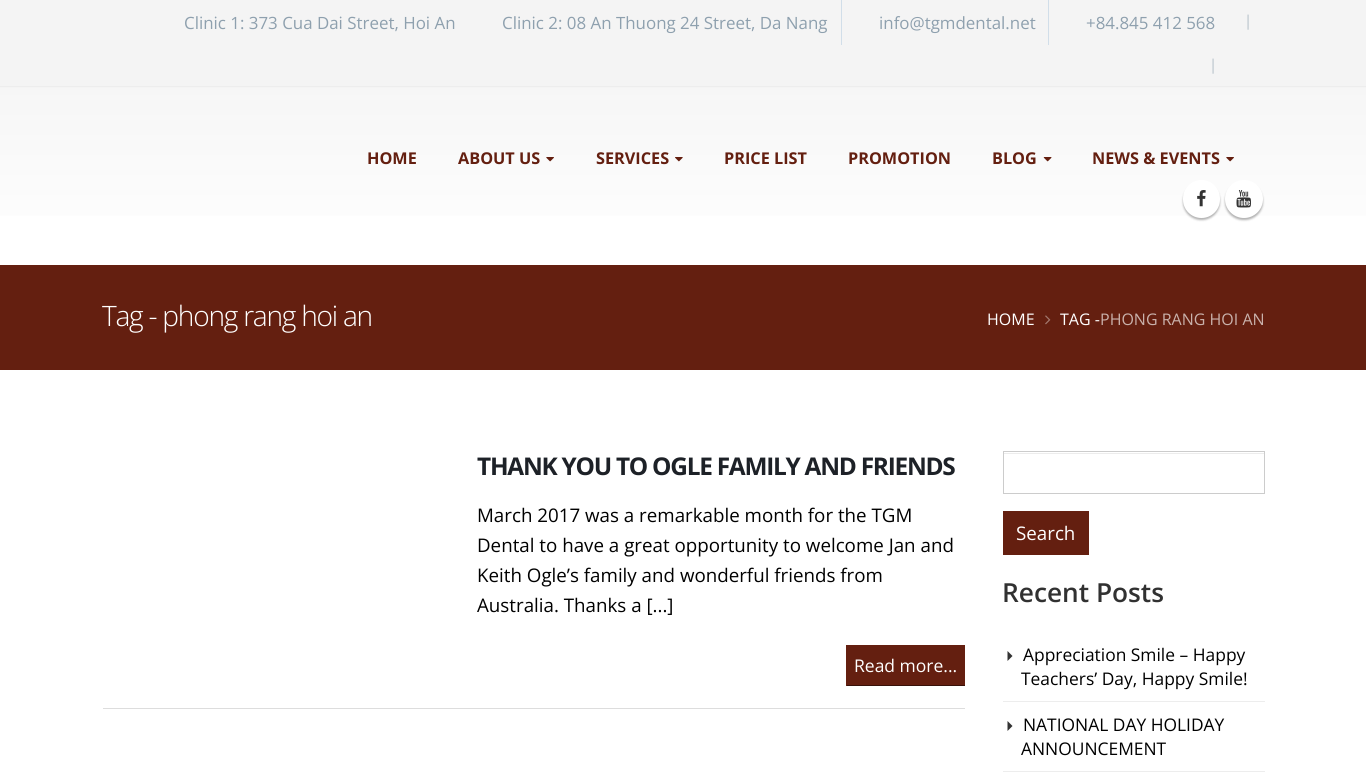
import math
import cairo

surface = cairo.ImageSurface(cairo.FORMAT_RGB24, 1366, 774)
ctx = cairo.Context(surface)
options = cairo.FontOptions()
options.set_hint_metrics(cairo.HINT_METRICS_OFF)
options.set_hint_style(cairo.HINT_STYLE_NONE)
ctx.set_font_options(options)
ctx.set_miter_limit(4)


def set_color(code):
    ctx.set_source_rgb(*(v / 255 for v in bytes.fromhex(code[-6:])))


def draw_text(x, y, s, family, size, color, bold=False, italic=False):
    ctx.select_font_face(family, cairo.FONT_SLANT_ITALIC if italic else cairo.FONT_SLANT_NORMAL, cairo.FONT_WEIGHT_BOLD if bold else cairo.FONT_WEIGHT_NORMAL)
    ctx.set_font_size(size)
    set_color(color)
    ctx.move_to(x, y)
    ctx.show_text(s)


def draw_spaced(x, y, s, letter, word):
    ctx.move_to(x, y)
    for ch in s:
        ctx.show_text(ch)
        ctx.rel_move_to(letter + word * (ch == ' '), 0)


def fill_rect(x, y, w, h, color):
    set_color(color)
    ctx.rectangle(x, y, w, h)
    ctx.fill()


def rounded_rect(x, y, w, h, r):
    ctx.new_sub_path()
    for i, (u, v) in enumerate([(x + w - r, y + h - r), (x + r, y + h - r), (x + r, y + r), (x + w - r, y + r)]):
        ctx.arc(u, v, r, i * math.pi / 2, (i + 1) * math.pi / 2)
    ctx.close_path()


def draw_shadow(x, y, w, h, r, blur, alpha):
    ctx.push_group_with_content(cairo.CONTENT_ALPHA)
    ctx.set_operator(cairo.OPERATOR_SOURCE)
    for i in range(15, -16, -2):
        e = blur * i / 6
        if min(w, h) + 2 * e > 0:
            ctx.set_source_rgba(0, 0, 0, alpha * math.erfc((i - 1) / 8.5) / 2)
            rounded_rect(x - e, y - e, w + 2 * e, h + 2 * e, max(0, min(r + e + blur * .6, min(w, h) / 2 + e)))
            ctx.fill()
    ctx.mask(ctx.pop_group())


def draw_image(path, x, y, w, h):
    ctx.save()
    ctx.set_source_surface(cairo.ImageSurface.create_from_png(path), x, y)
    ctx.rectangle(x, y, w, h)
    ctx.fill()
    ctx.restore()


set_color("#ffffff")
ctx.paint()
fill_rect(0, 0, 1366, 88, "#f4f4f4")
fill_rect(0, 86, 1366, 1, "#ededed")
fill_rect(841, 0, 1, 45, "#d1dee9")
draw_text(184, 29, "Clinic 1: 373 Cua Dai Street, Hoi An", "Open Sans", 16.9, "#8ea0ae")
draw_text(502, 29, "Clinic 2: 08 An Thuong 24 Street, Da Nang", "Open Sans", 16.9, "#8ea0ae")
fill_rect(1048, 0, 1, 45, "#d1dee9")
draw_text(879, 29, "info@tgmdental.net", "Open Sans", 16.9, "#8ea0ae")
draw_text(1086, 29, "+84.845 412 568", "Open Sans", 16.9, "#8ea0ae")
draw_text(1244, 26, "|", "Open Sans Light", 15, "#8ea0ae")
draw_text(1209, 70, "|", "Open Sans Light", 15, "#8ea0ae")
gradient = cairo.LinearGradient(683, 87, 683, 265)
gradient.add_color_stop_rgba(0, 0.965, 0.965, 0.965, 1)
gradient.add_color_stop_rgba(1, 1, 1, 1, 1)
ctx.set_source(gradient)
ctx.rectangle(0, 88, 1366, 128)
ctx.fill()
draw_text(367, 164, "HOME", "Open Sans", 16.25, "#641f10", bold=True)
draw_text(458, 164, "ABOUT US", "Open Sans", 16.25, "#641f10", bold=True)
draw_image("assets/img1.png", 546, 157, 8, 5)
draw_text(596, 164, "SERVICES", "Open Sans", 16.25, "#641f10", bold=True)
draw_image("assets/img2.png", 675, 157, 8, 5)
draw_text(724, 164, "PRICE LIST", "Open Sans", 16.25, "#641f10", bold=True)
draw_text(848, 164, "PROMOTION", "Open Sans", 16.25, "#641f10", bold=True)
draw_text(992, 164, "BLOG", "Open Sans", 16.25, "#641f10", bold=True)
draw_image("assets/img3.png", 1043, 157, 9, 5)
draw_text(1092, 164, "NEWS & EVENTS", "Open Sans", 16.25, "#641f10", bold=True)
draw_image("assets/img1.png", 1226, 157, 8, 5)
set_color("#000000")
draw_shadow(1183, 183, 37, 37, 18.5, 1, 0.3)
set_color("#ffffff")
rounded_rect(1183, 180, 37, 38, 18.5)
ctx.fill()
draw_image("assets/img4.png", 1197, 190, 9, 17)
set_color("#000000")
draw_shadow(1225, 183, 38, 37, 18.5, 1, 0.3)
set_color("#ffffff")
ctx.arc(1244, 199, 19, 0, 2 * math.pi)
ctx.fill()
draw_image("assets/img5.png", 1236, 190, 15, 18)
fill_rect(0, 265, 1366, 105, "#641f10")
ctx.select_font_face("Open Sans Light")
ctx.set_font_size(28.1)
set_color("#ffffff")
draw_spaced(102, 326, "Tag - phong rang hoi an", -1.25, 0)
draw_text(987, 325, "HOME", "Open Sans", 16, "#ffffff")
draw_image("assets/img6.png", 1045, 315, 6, 10)
draw_text(1060, 325, "TAG -", "Open Sans", 16, "#ffffff")
draw_text(1100, 325, "PHONG RANG HOI AN", "Open Sans", 16, "#c9b1ab")
fill_rect(103, 708, 862, 1, "#dddddd")
ctx.select_font_face("Open Sans", cairo.FONT_SLANT_NORMAL, cairo.FONT_WEIGHT_BOLD)
ctx.set_font_size(24.4)
set_color("#1d2127")
draw_spaced(477, 475, "THANK YOU TO OGLE FAMILY AND FRIENDS", -1.25, 0)
draw_text(477, 522, "March 2017 was a remarkable month for the TGM", "Open Sans", 18.75, "#000000")
draw_text(477, 552, "Dental to have a great opportunity to welcome Jan and", "Open Sans", 18.75, "#000000")
draw_text(477, 582, "Keith Ogle’s family and wonderful friends from", "Open Sans", 18.75, "#000000")
draw_text(477, 612, "Australia. Thanks a [...]", "Open Sans", 18.75, "#000000")
fill_rect(847, 645, 118, 40, "#641f10")
fill_rect(846, 685, 119, 1, "#381109")
fill_rect(846, 645, 1, 41, "#641f10")
draw_text(854, 672, "Read more...", "Open Sans", 17.5, "#ffffff")
fill_rect(1004, 453, 260, 1, "#ececec")
ctx.rectangle(1003.5, 451.5, 261, 42)
set_color("#cccccc")
ctx.set_line_width(1)
ctx.stroke()
fill_rect(1003, 511, 86, 44, "#641f10")
draw_text(1016, 540, "Search", "Open Sans", 18.75, "#ffffff")
draw_text(1002, 602, "Recent Posts", "Open Sans SemiBold", 26.25, "#313131")
set_color("#333333")
ctx.new_path()
ctx.move_to(1007.5, 661)
ctx.line_to(1007.5, 651)
ctx.line_to(1012.5, 656)
ctx.close_path()
ctx.fill()
draw_text(1023, 661, "Appreciation Smile – Happy", "Open Sans", 17.4, "#000000")
draw_text(1021, 685, "Teachers’ Day, Happy Smile!", "Open Sans", 17.4, "#000000")
fill_rect(1003, 701, 262, 1, "#ededed")
set_color("#333333")
ctx.new_path()
ctx.move_to(1007.5, 731)
ctx.line_to(1007.5, 721)
ctx.line_to(1012.5, 726)
ctx.close_path()
ctx.fill()
draw_text(1023, 731, "NATIONAL DAY HOLIDAY", "Open Sans", 17.4, "#000000")
draw_text(1021, 755, "ANNOUNCEMENT", "Open Sans", 17.4, "#000000")
fill_rect(1003, 771, 262, 1, "#ededed")
surface.write_to_png("output.png")
